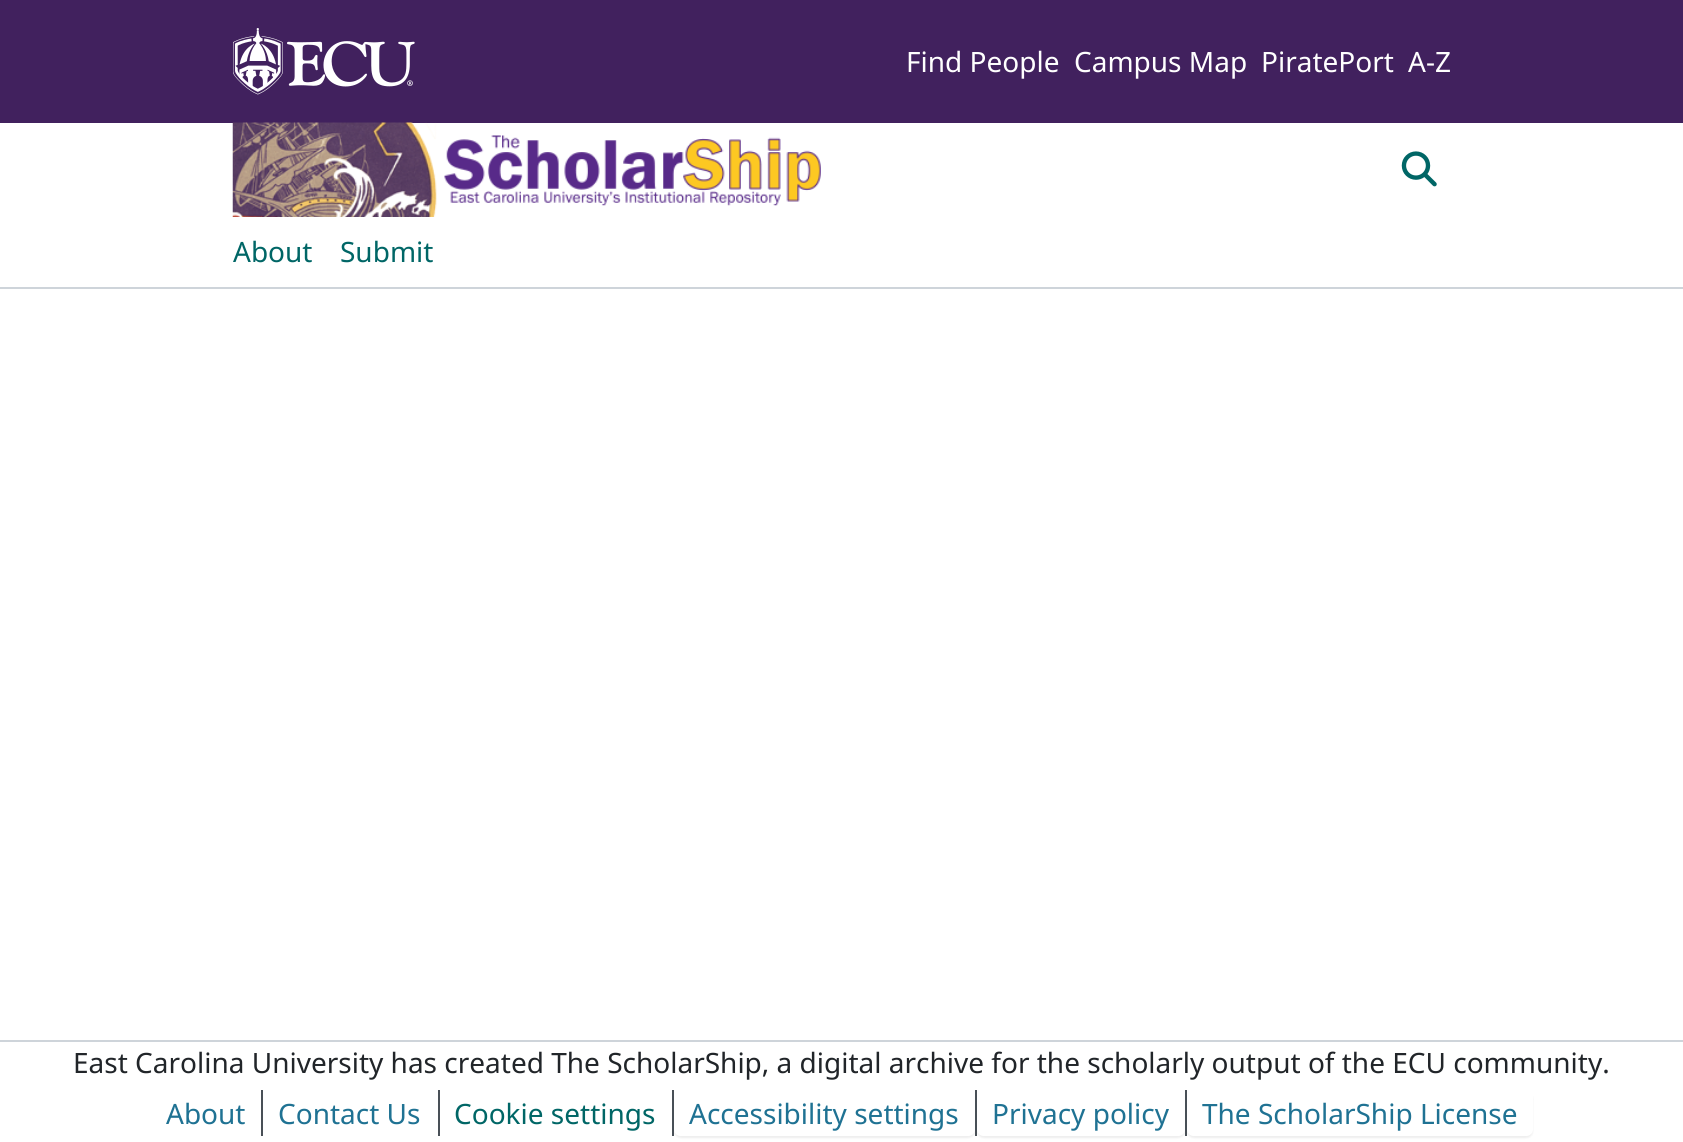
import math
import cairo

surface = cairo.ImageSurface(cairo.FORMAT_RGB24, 1683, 1142)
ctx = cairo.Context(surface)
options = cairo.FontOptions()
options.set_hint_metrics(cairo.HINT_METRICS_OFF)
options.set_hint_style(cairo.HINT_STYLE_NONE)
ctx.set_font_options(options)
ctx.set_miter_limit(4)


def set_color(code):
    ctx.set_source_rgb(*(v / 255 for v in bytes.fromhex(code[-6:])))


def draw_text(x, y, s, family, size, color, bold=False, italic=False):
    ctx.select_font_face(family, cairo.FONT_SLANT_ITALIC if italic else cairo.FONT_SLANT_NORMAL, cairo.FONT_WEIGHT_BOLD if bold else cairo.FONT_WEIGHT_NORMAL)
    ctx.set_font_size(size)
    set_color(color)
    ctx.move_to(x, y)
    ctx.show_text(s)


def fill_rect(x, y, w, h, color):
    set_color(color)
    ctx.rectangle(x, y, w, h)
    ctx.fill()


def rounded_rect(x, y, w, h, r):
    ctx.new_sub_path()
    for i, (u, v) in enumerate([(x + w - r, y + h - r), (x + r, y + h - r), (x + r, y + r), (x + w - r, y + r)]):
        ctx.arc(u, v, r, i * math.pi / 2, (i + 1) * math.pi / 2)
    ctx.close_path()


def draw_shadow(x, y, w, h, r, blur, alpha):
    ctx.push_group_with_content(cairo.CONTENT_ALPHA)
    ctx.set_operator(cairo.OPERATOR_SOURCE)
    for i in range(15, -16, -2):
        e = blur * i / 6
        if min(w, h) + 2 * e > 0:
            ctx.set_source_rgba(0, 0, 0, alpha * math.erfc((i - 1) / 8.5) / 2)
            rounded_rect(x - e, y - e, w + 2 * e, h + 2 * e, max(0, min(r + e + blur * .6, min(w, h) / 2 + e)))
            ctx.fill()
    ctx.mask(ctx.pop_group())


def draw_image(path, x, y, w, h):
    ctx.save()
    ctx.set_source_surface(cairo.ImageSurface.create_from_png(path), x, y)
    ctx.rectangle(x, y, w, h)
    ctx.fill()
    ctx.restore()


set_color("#ffffff")
ctx.paint()
fill_rect(0, 287, 1683, 2, "#ced4da")
fill_rect(0, 0, 1683, 123, "#41215e")
draw_image("assets/img1.png", 233, 28, 182, 67)
draw_text(906, 72, "Find People", "Noto Sans", 28, "#ffffff")
draw_text(1074, 72, "Campus Map", "Noto Sans", 28, "#ffffff")
draw_text(1261, 72, "PiratePort", "Noto Sans", 28, "#ffffff")
draw_text(1408, 72, "A-Z", "Noto Sans", 28, "#ffffff")
draw_image("assets/img2.png", 232, 122, 589, 95)
draw_image("assets/img3.png", 1401, 151, 36, 36)
draw_text(233, 262, "About", "Noto Sans", 28, "#006666")
draw_text(340, 262, "Submit", "Noto Sans", 28, "#006666")
fill_rect(0, 1040, 1683, 2, "#ced4da")
draw_text(73, 1073, "East Carolina University has created The ScholarShip, a digital archive for the scholarly output of the ECU community.", "Noto Sans", 28, "#212529")
draw_text(166, 1124, "About", "Noto Sans", 28, "#1f7293")
fill_rect(261, 1090, 2, 46, "#495057")
draw_text(278, 1124, "Contact Us", "Noto Sans", 28, "#1f7293")
fill_rect(438, 1090, 2, 46, "#495057")
draw_text(454, 1124, "Cookie settings", "Noto Sans", 28, "#006666")
fill_rect(672, 1090, 2, 46, "#495057")
ctx.save()
ctx.set_fill_rule(cairo.FILL_RULE_EVEN_ODD)
ctx.new_path()
ctx.move_to(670, 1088)
ctx.line_to(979, 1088)
ctx.line_to(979, 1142)
ctx.line_to(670, 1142)
ctx.close_path()
ctx.move_to(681, 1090)
ctx.line_to(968, 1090)
ctx.curve_to(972, 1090, 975, 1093, 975, 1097)
ctx.line_to(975, 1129)
ctx.curve_to(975, 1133, 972, 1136, 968, 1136)
ctx.line_to(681, 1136)
ctx.curve_to(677, 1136, 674, 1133, 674, 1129)
ctx.line_to(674, 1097)
ctx.curve_to(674, 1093, 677, 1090, 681, 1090)
ctx.close_path()
ctx.clip()
set_color("#000000")
draw_shadow(674, 1092, 301, 46, 7, 1, 0.07)
ctx.restore()
draw_text(689, 1124, "Accessibility settings", "Noto Sans", 28, "#1f7293")
fill_rect(975, 1090, 2, 46, "#495057")
ctx.save()
ctx.set_fill_rule(cairo.FILL_RULE_EVEN_ODD)
ctx.new_path()
ctx.move_to(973, 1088)
ctx.line_to(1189, 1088)
ctx.line_to(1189, 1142)
ctx.line_to(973, 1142)
ctx.close_path()
ctx.move_to(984, 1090)
ctx.line_to(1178, 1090)
ctx.curve_to(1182, 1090, 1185, 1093, 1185, 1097)
ctx.line_to(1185, 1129)
ctx.curve_to(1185, 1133, 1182, 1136, 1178, 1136)
ctx.line_to(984, 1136)
ctx.curve_to(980, 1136, 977, 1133, 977, 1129)
ctx.line_to(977, 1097)
ctx.curve_to(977, 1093, 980, 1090, 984, 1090)
ctx.close_path()
ctx.clip()
set_color("#000000")
draw_shadow(977, 1092, 208, 46, 7, 1, 0.07)
ctx.restore()
draw_text(992, 1124, "Privacy policy", "Noto Sans", 28, "#1f7293")
fill_rect(1185, 1090, 2, 46, "#495057")
ctx.save()
ctx.set_fill_rule(cairo.FILL_RULE_EVEN_ODD)
ctx.new_path()
ctx.move_to(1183, 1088)
ctx.line_to(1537, 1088)
ctx.line_to(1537, 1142)
ctx.line_to(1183, 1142)
ctx.close_path()
ctx.move_to(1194, 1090)
ctx.line_to(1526, 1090)
ctx.curve_to(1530, 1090, 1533, 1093, 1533, 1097)
ctx.line_to(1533, 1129)
ctx.curve_to(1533, 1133, 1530, 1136, 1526, 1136)
ctx.line_to(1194, 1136)
ctx.curve_to(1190, 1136, 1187, 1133, 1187, 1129)
ctx.line_to(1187, 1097)
ctx.curve_to(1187, 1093, 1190, 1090, 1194, 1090)
ctx.close_path()
ctx.clip()
set_color("#000000")
draw_shadow(1187, 1092, 346, 46, 7, 1, 0.07)
ctx.restore()
draw_text(1202, 1124, "The ScholarShip License", "Noto Sans", 28, "#1f7293")
surface.write_to_png("output.png")
